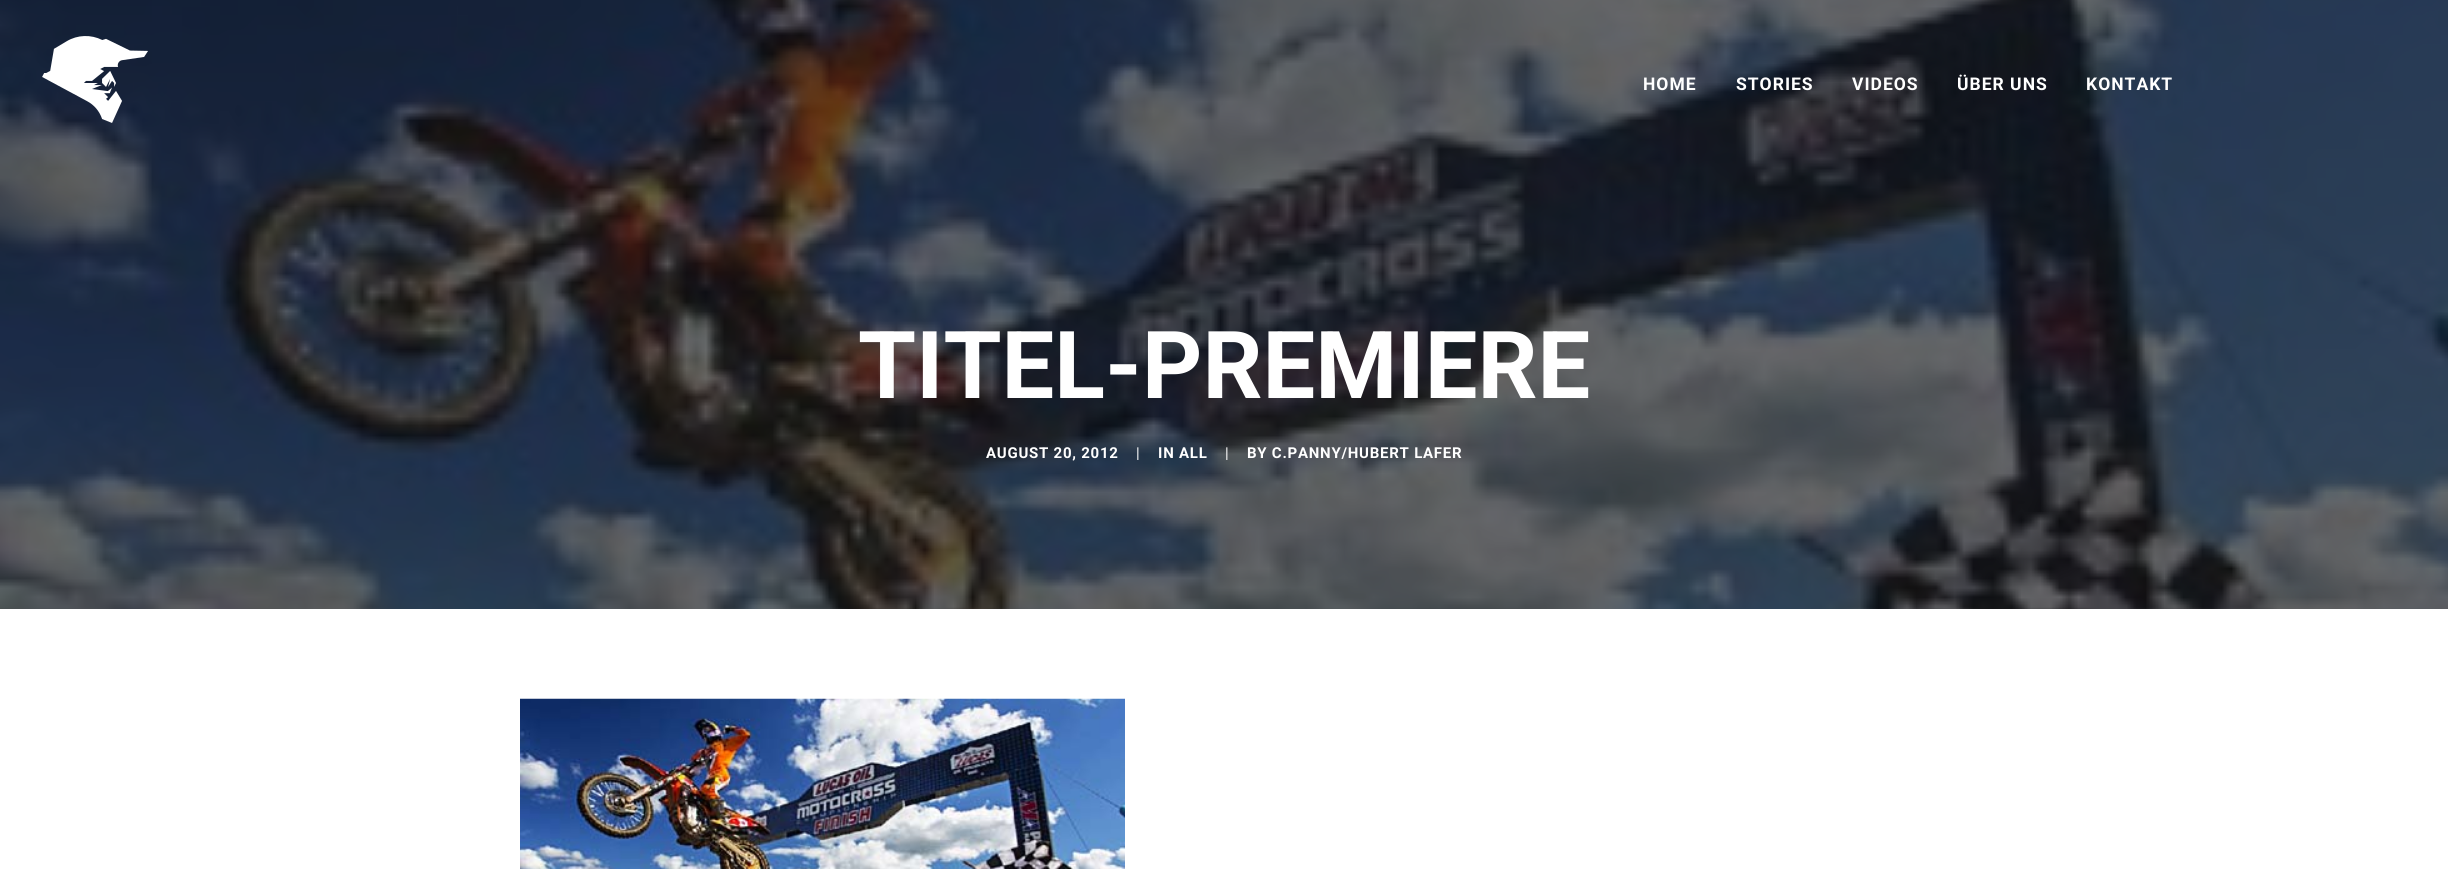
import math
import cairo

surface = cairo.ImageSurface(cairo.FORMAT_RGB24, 2448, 869)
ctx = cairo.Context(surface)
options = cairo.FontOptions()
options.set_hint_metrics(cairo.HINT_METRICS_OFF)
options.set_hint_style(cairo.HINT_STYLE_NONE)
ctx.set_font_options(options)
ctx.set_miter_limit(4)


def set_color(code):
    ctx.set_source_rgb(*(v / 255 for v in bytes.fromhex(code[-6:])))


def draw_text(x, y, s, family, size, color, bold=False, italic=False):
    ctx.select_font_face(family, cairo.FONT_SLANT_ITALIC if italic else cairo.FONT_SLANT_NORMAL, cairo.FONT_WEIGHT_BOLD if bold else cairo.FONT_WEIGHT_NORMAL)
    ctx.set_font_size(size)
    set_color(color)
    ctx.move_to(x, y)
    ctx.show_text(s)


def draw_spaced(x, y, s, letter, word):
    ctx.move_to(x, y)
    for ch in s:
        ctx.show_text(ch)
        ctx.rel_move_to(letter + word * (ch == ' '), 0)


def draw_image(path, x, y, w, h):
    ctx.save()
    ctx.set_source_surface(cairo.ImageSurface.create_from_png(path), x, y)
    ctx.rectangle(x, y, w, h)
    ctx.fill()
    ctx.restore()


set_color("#ffffff")
ctx.paint()
draw_image("assets/img2.png", 0, 0, 2448, 609)
draw_image("assets/img1.png", 42, 36, 106, 87)
ctx.select_font_face("Roboto", cairo.FONT_SLANT_NORMAL, cairo.FONT_WEIGHT_BOLD)
ctx.set_font_size(17.5)
set_color("#ffffff")
draw_spaced(1643, 90, "HOME", 1, 0)
draw_spaced(1736, 90, "STORIES", 1, 0)
draw_spaced(1852, 90, "VIDEOS", 1, 0)
draw_spaced(1957, 90, "ÜBER UNS", 1, 0)
draw_spaced(2086, 90, "KONTAKT", 1, 0)
draw_text(858, 398, "TITEL-PREMIERE", "Roboto", 93.75, "#ffffff", bold=True)
ctx.set_font_size(15)
draw_spaced(986, 458, "AUGUST 20, 2012", 0.75, 0)
ctx.select_font_face("Roboto")
draw_spaced(1136, 458, "|", 0.75, 0)
ctx.select_font_face("Roboto", cairo.FONT_SLANT_NORMAL, cairo.FONT_WEIGHT_BOLD)
draw_spaced(1158, 458, "IN ALL", 0.75, 0)
ctx.select_font_face("Roboto")
draw_spaced(1225, 458, "|", 0.75, 0)
ctx.select_font_face("Roboto", cairo.FONT_SLANT_NORMAL, cairo.FONT_WEIGHT_BOLD)
draw_spaced(1247, 458, "BY C.PANNY/HUBERT LAFER", 0.75, 0)
draw_image("assets/img3.png", 520, 698, 605, 171)
surface.write_to_png("output.png")
